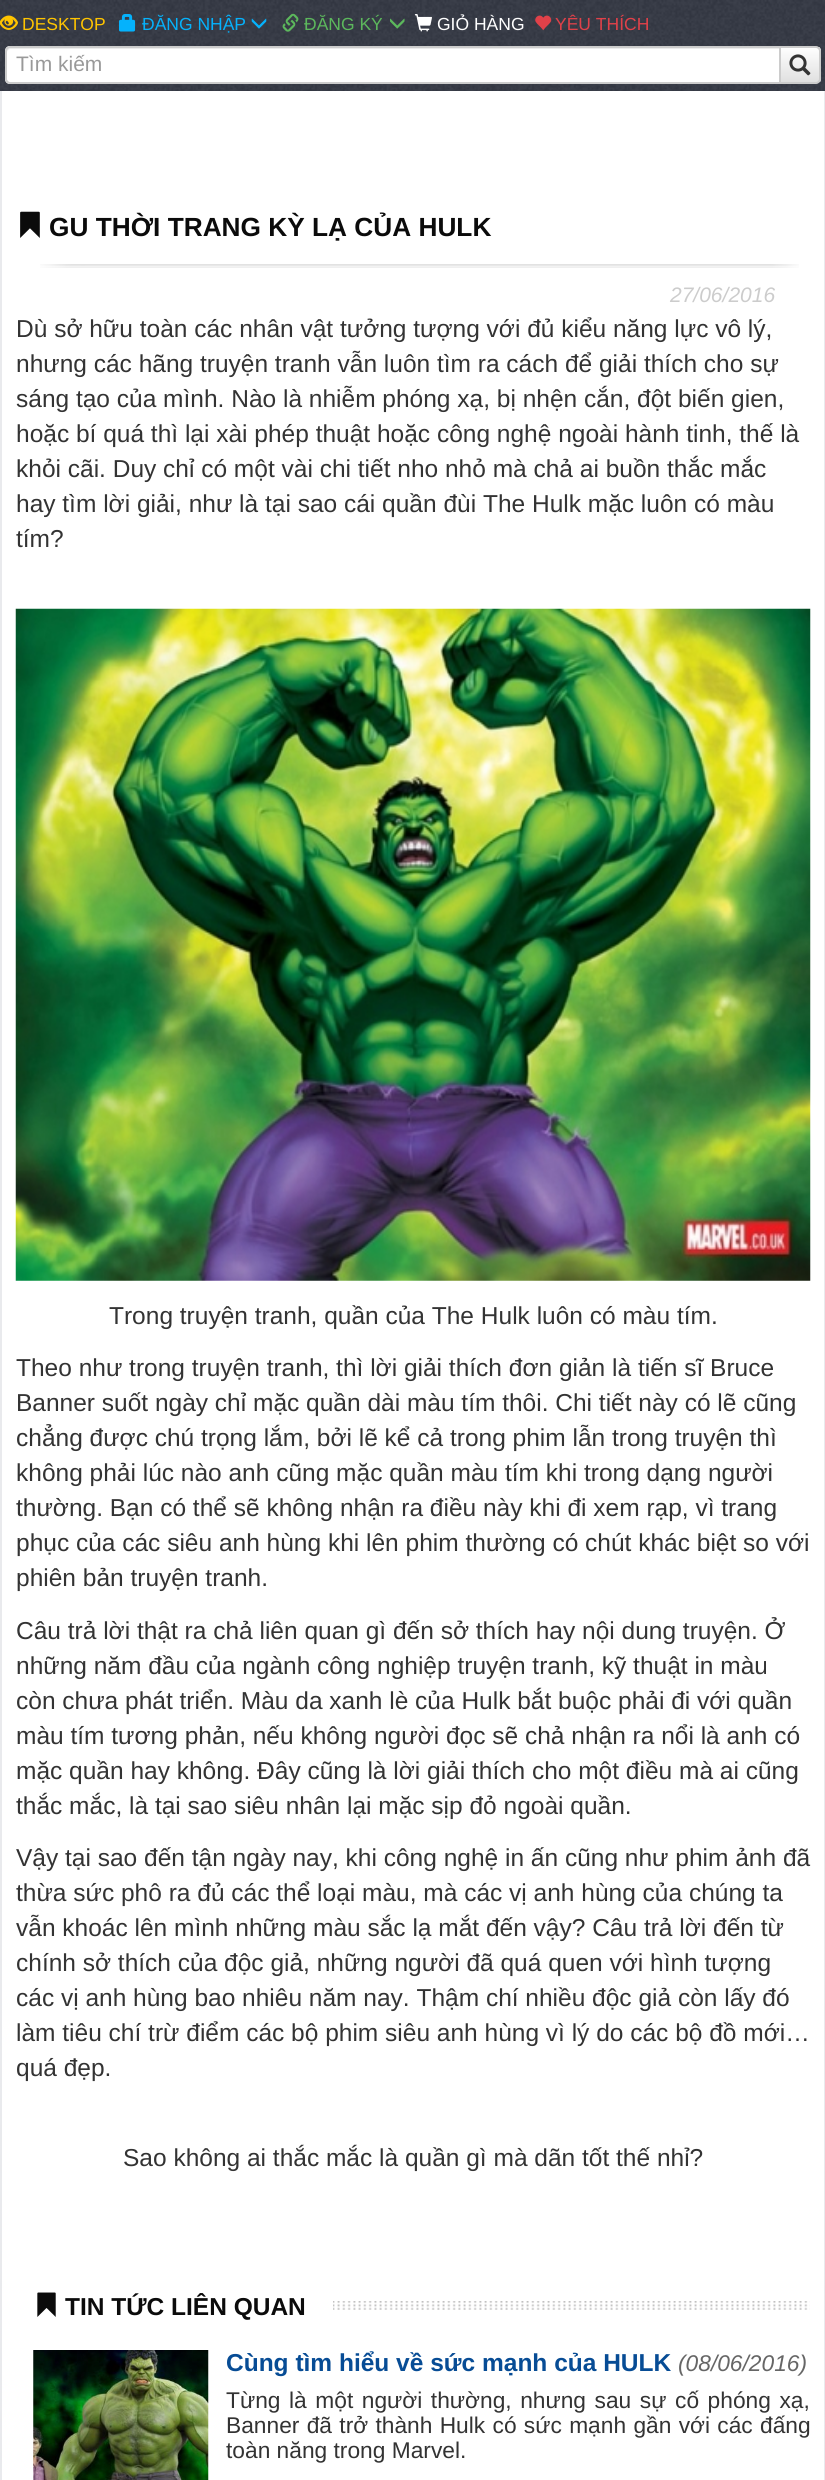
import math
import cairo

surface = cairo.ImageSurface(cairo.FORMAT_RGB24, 825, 2480)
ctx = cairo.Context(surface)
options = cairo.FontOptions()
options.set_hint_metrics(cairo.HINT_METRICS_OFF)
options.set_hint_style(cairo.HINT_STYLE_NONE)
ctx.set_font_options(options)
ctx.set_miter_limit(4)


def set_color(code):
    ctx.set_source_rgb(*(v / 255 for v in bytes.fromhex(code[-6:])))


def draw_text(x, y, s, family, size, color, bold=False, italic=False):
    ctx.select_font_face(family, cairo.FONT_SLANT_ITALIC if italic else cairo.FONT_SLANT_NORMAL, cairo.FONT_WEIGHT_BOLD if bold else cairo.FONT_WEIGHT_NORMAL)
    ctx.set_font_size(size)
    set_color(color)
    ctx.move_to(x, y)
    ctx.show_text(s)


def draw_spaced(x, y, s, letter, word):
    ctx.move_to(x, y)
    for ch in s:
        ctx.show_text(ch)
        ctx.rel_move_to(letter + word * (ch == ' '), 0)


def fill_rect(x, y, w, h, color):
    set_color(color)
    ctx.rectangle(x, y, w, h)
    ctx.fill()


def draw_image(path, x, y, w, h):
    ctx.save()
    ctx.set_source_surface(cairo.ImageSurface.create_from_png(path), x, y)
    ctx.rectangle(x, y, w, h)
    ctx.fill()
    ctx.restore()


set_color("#ffffff")
ctx.paint()
draw_image("assets/img1.png", 0, 0, 825, 91)
draw_image("assets/img2.png", 0, 15, 18, 15)
draw_text(22, 30, "DESKTOP", "Liberation Sans", 17.5, "#ffc400")
draw_image("assets/img3.png", 119, 14, 17, 18)
draw_text(142, 30, "ĐĂNG NHẬP", "Liberation Sans", 17.5, "#05b2fc")
draw_image("assets/img4.png", 251, 18, 16, 11)
draw_image("assets/img5.png", 282, 13, 17, 19)
draw_text(304, 30, "ĐĂNG KÝ", "Liberation Sans", 17.5, "#5cb85c")
draw_image("assets/img6.png", 390, 18, 15, 11)
draw_image("assets/img7.png", 414, 14, 18, 18)
draw_text(437, 30, "GIỎ HÀNG", "Liberation Sans", 17.5, "#ffffff")
draw_image("assets/img8.png", 535, 15, 17, 16)
draw_text(555, 30, "YÊU THÍCH", "Liberation Sans", 17.5, "#e04149")
ctx.save()
ctx.new_path()
ctx.move_to(779, 46)
ctx.line_to(816, 46)
ctx.curve_to(819, 46, 821, 48, 821, 51)
ctx.line_to(821, 79)
ctx.curve_to(821, 82, 819, 84, 816, 84)
ctx.line_to(779, 84)
ctx.close_path()
ctx.clip()
gradient = cairo.LinearGradient(800, 47, 800, 82)
gradient.add_color_stop_rgba(0, 1, 1, 1, 1)
gradient.add_color_stop_rgba(1, 0.878, 0.878, 0.878, 1)
ctx.set_source(gradient)
ctx.rectangle(781, 47, 40, 35)
ctx.fill()
ctx.restore()
ctx.new_path()
ctx.move_to(780, 47)
ctx.line_to(816, 47)
ctx.curve_to(818, 47, 820, 49, 820, 51)
ctx.line_to(820, 79)
ctx.curve_to(820, 81, 818, 83, 816, 83)
ctx.line_to(780, 83)
ctx.close_path()
set_color("#cccccc")
ctx.stroke()
set_color("#ffffff")
ctx.new_path()
ctx.move_to(10, 46)
ctx.line_to(781, 46)
ctx.line_to(781, 84)
ctx.line_to(10, 84)
ctx.curve_to(7, 84, 5, 82, 5, 79)
ctx.line_to(5, 51)
ctx.curve_to(5, 48, 7, 46, 10, 46)
ctx.close_path()
ctx.fill()
set_color("#ececec")
ctx.new_path()
ctx.move_to(10, 49)
ctx.line_to(779, 49)
ctx.line_to(779, 47)
ctx.line_to(11, 47)
ctx.curve_to(9, 47, 7, 49, 7, 51)
ctx.line_to(7, 52)
ctx.curve_to(7, 51, 9, 49, 10, 49)
ctx.close_path()
ctx.fill()
ctx.new_path()
ctx.move_to(10, 47)
ctx.line_to(780, 47)
ctx.line_to(780, 83)
ctx.line_to(10, 83)
ctx.curve_to(8, 83, 6, 81, 6, 79)
ctx.line_to(6, 51)
ctx.curve_to(6, 49, 8, 47, 10, 47)
ctx.close_path()
set_color("#cccccc")
ctx.stroke()
draw_text(16, 71, "Tìm kiếm", "Liberation Sans", 21, "#999999")
draw_image("assets/img9.png", 789, 54, 22, 22)
fill_rect(824, 91, 1, 2389, "#e9eaed")
fill_rect(0, 91, 2, 2389, "#e9eaed")
draw_image("assets/img10.png", 20, 211, 20, 27)
draw_text(49, 236, "GU THỜI TRANG KỲ LẠ CỦA HULK", "Liberation Sans", 26.25, "#0b0b0b", bold=True)
draw_image("assets/img11.png", 40, 264, 759, 4)
draw_text(670, 302, "27/06/2016", "Liberation Sans", 21, "#cccccc", italic=True)
draw_text(16, 337, "Dù sở hữu toàn các nhân vật tưởng tượng với đủ kiểu năng lực vô lý,", "Liberation Sans", 24.5, "#333333")
draw_text(16, 372, "nhưng các hãng truyện tranh vẫn luôn tìm ra cách để giải thích cho sự", "Liberation Sans", 24.5, "#333333")
draw_text(16, 407, "sáng tạo của mình. Nào là nhiễm phóng xạ, bị nhện cắn, đột biến gien,", "Liberation Sans", 24.5, "#333333")
draw_text(16, 442, "hoặc bí quá thì lại xài phép thuật hoặc công nghệ ngoài hành tinh, thế là", "Liberation Sans", 24.5, "#333333")
draw_text(16, 477, "khỏi cãi. Duy chỉ có một vài chi tiết nho nhỏ mà chả ai buồn thắc mắc", "Liberation Sans", 24.5, "#333333")
draw_text(16, 512, "hay tìm lời giải, như là tại sao cái quần đùi The Hulk mặc luôn có màu", "Liberation Sans", 24.5, "#333333")
draw_text(16, 547, "tím?", "Liberation Sans", 24.5, "#333333")
draw_image("assets/img12.png", 15, 608, 796, 673)
draw_text(109, 1324, "Trong truyện tranh, quần của The Hulk luôn có màu tím.", "Liberation Sans", 24.5, "#333333")
draw_text(16, 1376, "Theo như trong truyện tranh, thì lời giải thích đơn giản là tiến sĩ Bruce", "Liberation Sans", 24.5, "#333333")
draw_text(16, 1411, "Banner suốt ngày chỉ mặc quần dài màu tím thôi. Chi tiết này có lẽ cũng", "Liberation Sans", 24.5, "#333333")
draw_text(16, 1446, "chẳng được chú trọng lắm, bởi lẽ kể cả trong phim lẫn trong truyện thì", "Liberation Sans", 24.5, "#333333")
draw_text(16, 1481, "không phải lúc nào anh cũng mặc quần màu tím khi trong dạng người", "Liberation Sans", 24.5, "#333333")
draw_text(16, 1516, "thường. Bạn có thể sẽ không nhận ra điều này khi đi xem rạp, vì trang", "Liberation Sans", 24.5, "#333333")
draw_text(16, 1551, "phục của các siêu anh hùng khi lên phim thường có chút khác biệt so với", "Liberation Sans", 24.5, "#333333")
draw_text(16, 1586, "phiên bản truyện tranh.", "Liberation Sans", 24.5, "#333333")
draw_text(16, 1639, "Câu trả lời thật ra chả liên quan gì đến sở thích hay nội dung truyện. Ở", "Liberation Sans", 24.5, "#333333")
draw_text(16, 1674, "những năm đầu của ngành công nghiệp truyện tranh, kỹ thuật in màu", "Liberation Sans", 24.5, "#333333")
draw_text(16, 1709, "còn chưa phát triển. Màu da xanh lè của Hulk bắt buộc phải đi với quần", "Liberation Sans", 24.5, "#333333")
draw_text(16, 1744, "màu tím tương phản, nếu không người đọc sẽ chả nhận ra nổi là anh có", "Liberation Sans", 24.5, "#333333")
draw_text(16, 1779, "mặc quần hay không. Đây cũng là lời giải thích cho một điều mà ai cũng", "Liberation Sans", 24.5, "#333333")
draw_text(16, 1814, "thắc mắc, là tại sao siêu nhân lại mặc sịp đỏ ngoài quần.", "Liberation Sans", 24.5, "#333333")
draw_text(16, 1866, "Vậy tại sao đến tận ngày nay, khi công nghệ in ấn cũng như phim ảnh đã", "Liberation Sans", 24.5, "#333333")
draw_text(16, 1901, "thừa sức phô ra đủ các thể loại màu, mà các vị anh hùng của chúng ta", "Liberation Sans", 24.5, "#333333")
draw_text(16, 1936, "vẫn khoác lên mình những màu sắc lạ mắt đến vậy? Câu trả lời đến từ", "Liberation Sans", 24.5, "#333333")
draw_text(16, 1971, "chính sở thích của độc giả, những người đã quá quen với hình tượng", "Liberation Sans", 24.5, "#333333")
draw_text(16, 2006, "các vị anh hùng bao nhiêu năm nay. Thậm chí nhiều độc giả còn lấy đó", "Liberation Sans", 24.5, "#333333")
draw_text(16, 2041, "làm tiêu chí trừ điểm các bộ phim siêu anh hùng vì lý do các bộ đồ mới…", "Liberation Sans", 24.5, "#333333")
draw_text(16, 2076, "quá đẹp.", "Liberation Sans", 24.5, "#333333")
draw_text(123, 2166, "Sao không ai thắc mắc là quần gì mà dãn tốt thế nhỉ?", "Liberation Sans", 24.5, "#333333")
draw_image("assets/img13.png", 333, 2301, 477, 9)
draw_image("assets/img14.png", 37, 2292, 19, 25)
draw_text(65, 2315, "TIN TỨC LIÊN QUAN", "Liberation Sans", 24.5, "#0b0b0b", bold=True)
draw_image("assets/img15.png", 33, 2350, 176, 130)
draw_text(226, 2371, "Cùng tìm hiểu về sức mạnh của HULK", "Liberation Sans", 24.5, "#074c95", bold=True)
draw_text(678, 2371, "(08/06/2016)", "Liberation Sans", 22.75, "#666666", italic=True)
ctx.select_font_face("Liberation Sans")
set_color("#333333")
draw_spaced(226, 2408, "Từng là một người thường, nhưng sau sự cố phóng xạ,", 0, 2.25)
draw_spaced(226, 2433, "Banner đã trở thành Hulk có sức mạnh gần với các đấng", 0, 1)
draw_text(226, 2458, "toàn năng trong Marvel.", "Liberation Sans", 22.75, "#333333")
surface.write_to_png("output.png")
